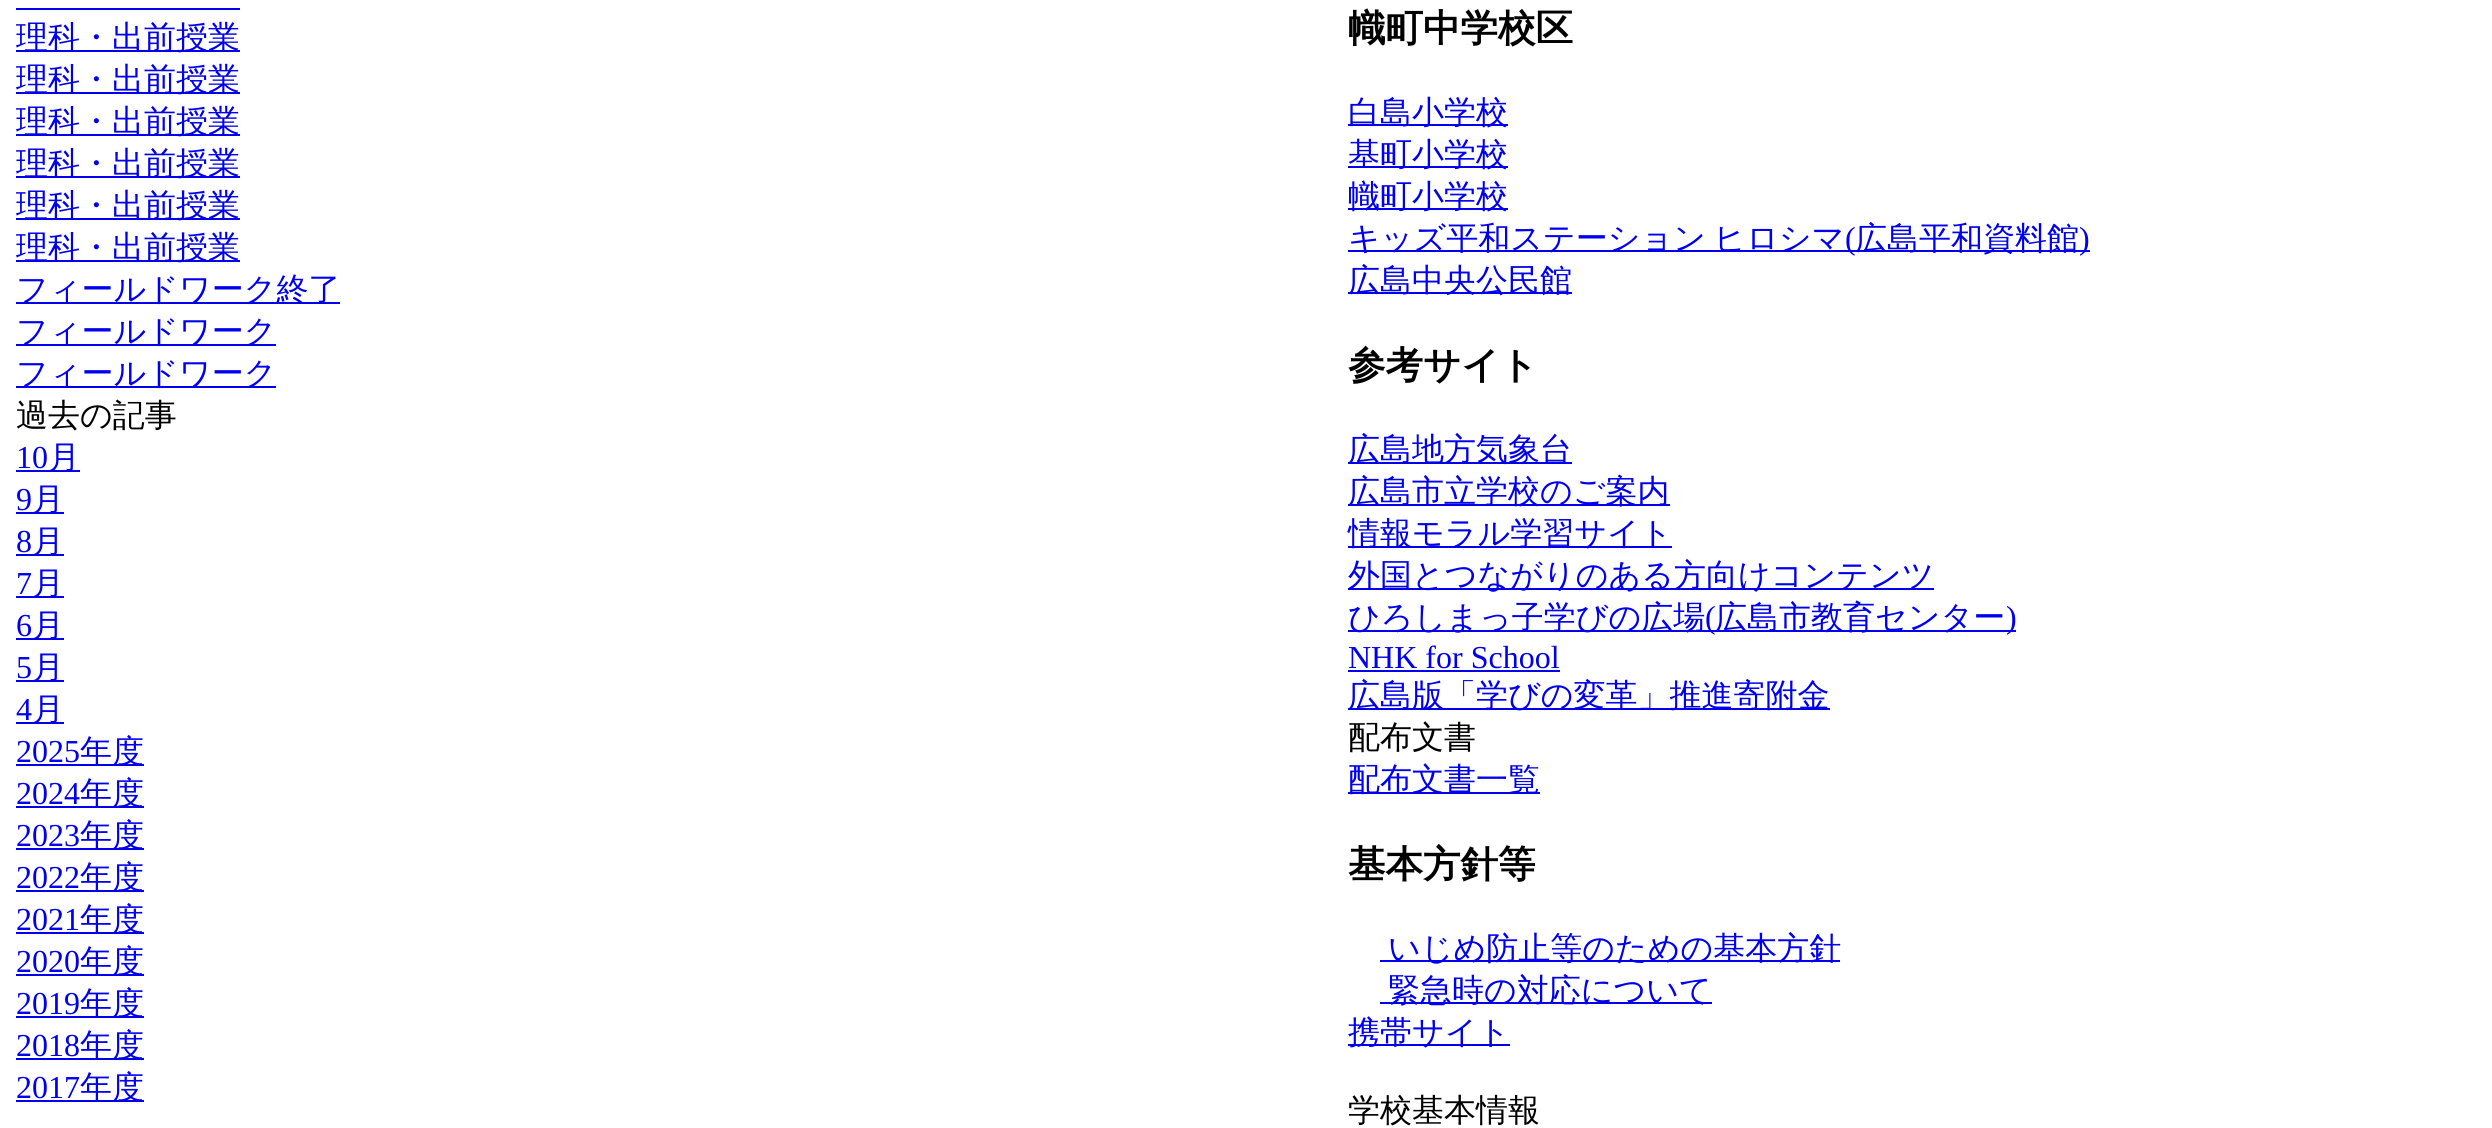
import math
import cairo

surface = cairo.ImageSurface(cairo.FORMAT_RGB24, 2492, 1128)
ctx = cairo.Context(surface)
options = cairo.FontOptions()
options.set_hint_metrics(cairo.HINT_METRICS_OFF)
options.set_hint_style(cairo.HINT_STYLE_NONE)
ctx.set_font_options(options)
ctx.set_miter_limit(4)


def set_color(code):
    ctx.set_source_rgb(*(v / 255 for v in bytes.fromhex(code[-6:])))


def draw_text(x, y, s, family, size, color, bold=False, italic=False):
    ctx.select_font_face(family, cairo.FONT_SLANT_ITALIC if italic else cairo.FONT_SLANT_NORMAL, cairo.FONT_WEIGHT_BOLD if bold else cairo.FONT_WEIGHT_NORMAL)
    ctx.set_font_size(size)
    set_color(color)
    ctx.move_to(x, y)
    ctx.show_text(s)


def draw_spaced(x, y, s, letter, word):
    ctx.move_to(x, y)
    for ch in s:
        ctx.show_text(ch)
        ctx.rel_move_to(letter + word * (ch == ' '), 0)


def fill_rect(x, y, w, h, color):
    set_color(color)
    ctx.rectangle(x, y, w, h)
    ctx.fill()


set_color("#ffffff")
ctx.paint()
fill_rect(16, 8, 224, 2, "#0000ee")
fill_rect(16, 50, 224, 2, "#0000ee")
draw_text(16, 48, "理科・出前授業", "WenQuanYi Zen Hei Medium", 32, "#0000ee")
fill_rect(16, 92, 224, 2, "#0000ee")
draw_text(16, 90, "理科・出前授業", "WenQuanYi Zen Hei Medium", 32, "#0000ee")
fill_rect(16, 134, 224, 2, "#0000ee")
draw_text(16, 132, "理科・出前授業", "WenQuanYi Zen Hei Medium", 32, "#0000ee")
fill_rect(16, 176, 224, 2, "#0000ee")
draw_text(16, 174, "理科・出前授業", "WenQuanYi Zen Hei Medium", 32, "#0000ee")
fill_rect(16, 218, 224, 2, "#0000ee")
draw_text(16, 216, "理科・出前授業", "WenQuanYi Zen Hei Medium", 32, "#0000ee")
fill_rect(16, 260, 224, 2, "#0000ee")
draw_text(16, 258, "理科・出前授業", "WenQuanYi Zen Hei Medium", 32, "#0000ee")
fill_rect(16, 302, 324, 2, "#0000ee")
draw_text(16, 300, "フィールドワーク終了", "WenQuanYi Zen Hei Medium", 32, "#0000ee")
fill_rect(16, 344, 260, 2, "#0000ee")
draw_text(16, 342, "フィールドワーク", "WenQuanYi Zen Hei Medium", 32, "#0000ee")
fill_rect(16, 386, 260, 2, "#0000ee")
draw_text(16, 384, "フィールドワーク", "WenQuanYi Zen Hei Medium", 32, "#0000ee")
draw_text(16, 426, "過去の記事", "WenQuanYi Zen Hei Medium", 32, "#000000")
draw_text(16, 468, "10", "Liberation Serif", 32, "#0000ee")
fill_rect(16, 470, 64, 2, "#0000ee")
draw_text(48, 468, "月", "WenQuanYi Zen Hei Medium", 32, "#0000ee")
draw_text(16, 510, "9", "Liberation Serif", 32, "#0000ee")
fill_rect(16, 512, 48, 2, "#0000ee")
draw_text(32, 510, "月", "WenQuanYi Zen Hei Medium", 32, "#0000ee")
draw_text(16, 552, "8", "Liberation Serif", 32, "#0000ee")
fill_rect(16, 554, 48, 2, "#0000ee")
draw_text(32, 552, "月", "WenQuanYi Zen Hei Medium", 32, "#0000ee")
draw_text(16, 594, "7", "Liberation Serif", 32, "#0000ee")
fill_rect(16, 596, 48, 2, "#0000ee")
draw_text(32, 594, "月", "WenQuanYi Zen Hei Medium", 32, "#0000ee")
draw_text(16, 636, "6", "Liberation Serif", 32, "#0000ee")
fill_rect(16, 638, 48, 2, "#0000ee")
draw_text(32, 636, "月", "WenQuanYi Zen Hei Medium", 32, "#0000ee")
draw_text(16, 678, "5", "Liberation Serif", 32, "#0000ee")
fill_rect(16, 680, 48, 2, "#0000ee")
draw_text(32, 678, "月", "WenQuanYi Zen Hei Medium", 32, "#0000ee")
draw_text(16, 720, "4", "Liberation Serif", 32, "#0000ee")
fill_rect(16, 722, 48, 2, "#0000ee")
draw_text(32, 720, "月", "WenQuanYi Zen Hei Medium", 32, "#0000ee")
draw_text(16, 762, "2025", "Liberation Serif", 32, "#0000ee")
fill_rect(16, 764, 128, 2, "#0000ee")
draw_text(80, 762, "年度", "WenQuanYi Zen Hei Medium", 32, "#0000ee")
draw_text(16, 804, "2024", "Liberation Serif", 32, "#0000ee")
fill_rect(16, 806, 128, 2, "#0000ee")
draw_text(80, 804, "年度", "WenQuanYi Zen Hei Medium", 32, "#0000ee")
draw_text(16, 846, "2023", "Liberation Serif", 32, "#0000ee")
fill_rect(16, 848, 128, 2, "#0000ee")
draw_text(80, 846, "年度", "WenQuanYi Zen Hei Medium", 32, "#0000ee")
draw_text(16, 888, "2022", "Liberation Serif", 32, "#0000ee")
fill_rect(16, 890, 128, 2, "#0000ee")
draw_text(80, 888, "年度", "WenQuanYi Zen Hei Medium", 32, "#0000ee")
draw_text(16, 930, "2021", "Liberation Serif", 32, "#0000ee")
fill_rect(16, 932, 128, 2, "#0000ee")
draw_text(80, 930, "年度", "WenQuanYi Zen Hei Medium", 32, "#0000ee")
draw_text(16, 972, "2020", "Liberation Serif", 32, "#0000ee")
fill_rect(16, 974, 128, 2, "#0000ee")
draw_text(80, 972, "年度", "WenQuanYi Zen Hei Medium", 32, "#0000ee")
draw_text(16, 1014, "2019", "Liberation Serif", 32, "#0000ee")
fill_rect(16, 1016, 128, 2, "#0000ee")
draw_text(80, 1014, "年度", "WenQuanYi Zen Hei Medium", 32, "#0000ee")
draw_text(16, 1056, "2018", "Liberation Serif", 32, "#0000ee")
fill_rect(16, 1058, 128, 2, "#0000ee")
draw_text(80, 1056, "年度", "WenQuanYi Zen Hei Medium", 32, "#0000ee")
draw_text(16, 1098, "2017", "Liberation Serif", 32, "#0000ee")
fill_rect(16, 1100, 128, 2, "#0000ee")
draw_text(80, 1098, "年度", "WenQuanYi Zen Hei Medium", 32, "#0000ee")
draw_text(1348, 41, "幟町中学校区", "WenQuanYi Zen Hei", 37.5, "#000000", bold=True)
fill_rect(1348, 124, 160, 2, "#0000ee")
draw_text(1348, 123, "白島小学校", "WenQuanYi Zen Hei Medium", 32, "#0000ee")
fill_rect(1348, 166, 160, 2, "#0000ee")
draw_text(1348, 165, "基町小学校", "WenQuanYi Zen Hei Medium", 32, "#0000ee")
fill_rect(1348, 208, 160, 2, "#0000ee")
draw_text(1348, 207, "幟町小学校", "WenQuanYi Zen Hei Medium", 32, "#0000ee")
fill_rect(1348, 250, 742, 2, "#0000ee")
draw_spaced(1348, 249, "キッズ平和ステーション ヒロシマ", 0, -2)
draw_text(1845, 249, "(", "Liberation Serif", 32, "#0000ee")
draw_text(1855, 249, "広島平和資料館", "WenQuanYi Zen Hei Medium", 32, "#0000ee")
draw_text(2079, 249, ")", "Liberation Serif", 32, "#0000ee")
fill_rect(1348, 292, 224, 2, "#0000ee")
draw_text(1348, 291, "広島中央公民館", "WenQuanYi Zen Hei Medium", 32, "#0000ee")
draw_text(1348, 378, "参考サイト", "WenQuanYi Zen Hei", 37.5, "#000000", bold=True)
fill_rect(1348, 462, 224, 2, "#0000ee")
draw_text(1348, 460, "広島地方気象台", "WenQuanYi Zen Hei Medium", 32, "#0000ee")
fill_rect(1348, 504, 322, 2, "#0000ee")
draw_text(1348, 502, "広島市立学校のご案内", "WenQuanYi Zen Hei Medium", 32, "#0000ee")
fill_rect(1348, 546, 324, 2, "#0000ee")
draw_text(1348, 544, "情報モラル学習サイト", "WenQuanYi Zen Hei Medium", 32, "#0000ee")
fill_rect(1348, 588, 586, 2, "#0000ee")
draw_text(1348, 586, "外国とつながりのある方向けコンテンツ", "WenQuanYi Zen Hei Medium", 32, "#0000ee")
fill_rect(1348, 630, 668, 2, "#0000ee")
draw_text(1348, 628, "ひろしまっ子学びの広場", "WenQuanYi Zen Hei Medium", 32, "#0000ee")
draw_text(1705, 628, "(", "Liberation Serif", 32, "#0000ee")
draw_text(1715, 628, "広島市教育センター", "WenQuanYi Zen Hei Medium", 32, "#0000ee")
draw_text(2006, 628, ")", "Liberation Serif", 32, "#0000ee")
draw_text(1348, 668, "NHK for School", "Liberation Serif", 32, "#0000ee")
fill_rect(1348, 670, 212, 2, "#0000ee")
fill_rect(1348, 708, 482, 2, "#0000ee")
draw_text(1348, 706, "広島版「学びの変革」推進寄附金", "WenQuanYi Zen Hei Medium", 32, "#0000ee")
draw_text(1348, 748, "配布文書", "WenQuanYi Zen Hei Medium", 32, "#000000")
fill_rect(1348, 792, 192, 2, "#0000ee")
draw_text(1348, 790, "配布文書一覧", "WenQuanYi Zen Hei Medium", 32, "#0000ee")
draw_text(1348, 877, "基本方針等", "WenQuanYi Zen Hei", 37.5, "#000000", bold=True)
fill_rect(1380, 960, 460, 2, "#0000ee")
draw_text(1388, 959, "いじめ防止等のための基本方針", "WenQuanYi Zen Hei Medium", 32, "#0000ee")
fill_rect(1380, 1002, 332, 2, "#0000ee")
draw_text(1388, 1001, "緊急時の対応について", "WenQuanYi Zen Hei Medium", 32, "#0000ee")
fill_rect(1348, 1044, 162, 2, "#0000ee")
draw_text(1348, 1043, "携帯サイト", "WenQuanYi Zen Hei Medium", 32, "#0000ee")
draw_text(1348, 1121, "学校基本情報", "WenQuanYi Zen Hei Medium", 32, "#000000")
surface.write_to_png("output.png")
